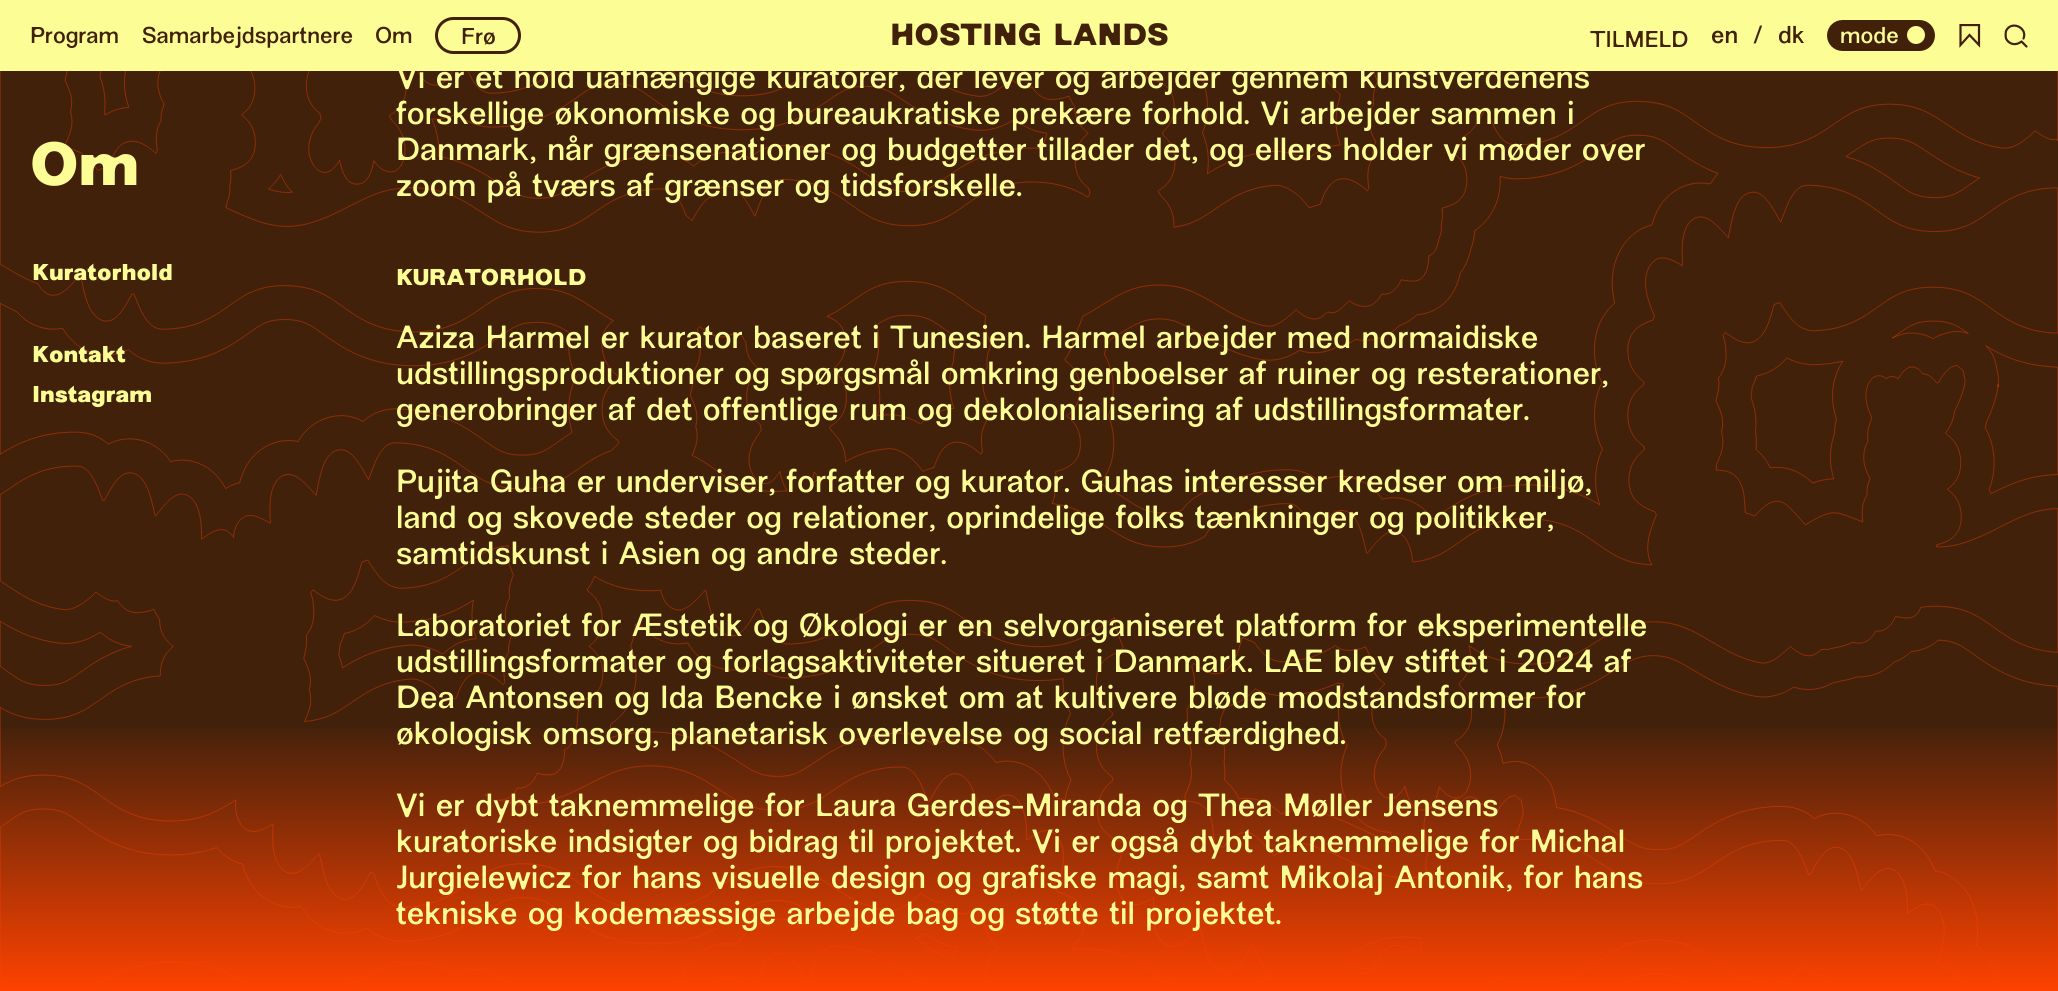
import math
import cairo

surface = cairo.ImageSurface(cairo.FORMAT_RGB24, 2058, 991)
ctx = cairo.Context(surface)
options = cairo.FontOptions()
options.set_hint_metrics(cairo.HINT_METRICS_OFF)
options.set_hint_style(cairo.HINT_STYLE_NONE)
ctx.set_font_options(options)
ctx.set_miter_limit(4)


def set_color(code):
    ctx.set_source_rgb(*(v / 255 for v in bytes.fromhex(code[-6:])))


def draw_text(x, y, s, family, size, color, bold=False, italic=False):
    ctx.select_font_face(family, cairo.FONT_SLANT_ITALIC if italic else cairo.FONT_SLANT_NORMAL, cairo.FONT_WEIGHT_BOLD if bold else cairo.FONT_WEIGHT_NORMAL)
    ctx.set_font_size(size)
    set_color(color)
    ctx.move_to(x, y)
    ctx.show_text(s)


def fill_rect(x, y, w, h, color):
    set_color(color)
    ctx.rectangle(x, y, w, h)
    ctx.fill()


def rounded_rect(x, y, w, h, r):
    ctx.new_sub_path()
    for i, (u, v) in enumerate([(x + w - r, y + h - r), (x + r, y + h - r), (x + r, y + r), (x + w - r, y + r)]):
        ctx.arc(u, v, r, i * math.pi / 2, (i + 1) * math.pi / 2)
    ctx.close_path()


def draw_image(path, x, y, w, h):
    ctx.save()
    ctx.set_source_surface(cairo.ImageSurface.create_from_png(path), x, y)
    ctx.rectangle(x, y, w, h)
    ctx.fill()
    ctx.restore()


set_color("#42210b")
ctx.paint()
fill_rect(0, 0, 2058, 71, "#fdfd96")
draw_text(30, 43, "Program", "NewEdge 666", 22.5, "#42210b")
draw_text(142, 43, "Samarbejdspartnere", "NewEdge 666", 22.5, "#42210b")
draw_text(375, 43, "Om", "NewEdge 666", 22.5, "#42210b")
rounded_rect(436.5, 18.5, 83, 34, 17)
ctx.set_line_width(3)
ctx.stroke()
draw_text(461, 44, "Frø", "NewEdge 666", 22.5, "#42210b")
draw_text(890, 45, "HOSTING LANDS", "NewEdge 666 ExtraBold", 30, "#42210b")
draw_text(1590, 47, "TILMELD", "NewEdge 666", 22.5, "#42210b")
draw_text(1711, 43, "en", "NewEdge 666", 24, "#42210b")
draw_text(1753, 43, "/", "NewEdge 666", 24, "#42210b")
draw_text(1778, 43, "dk", "NewEdge 666", 24, "#42210b")
rounded_rect(1828.5, 21.5, 105, 28, 14)
ctx.fill_preserve()
ctx.stroke()
draw_text(1840, 43, "mode", "NewEdge 666", 22.5, "#fdfd96")
ctx.new_path()
ctx.arc(1916, 35, 9, 0, 2 * math.pi)
ctx.fill()
ctx.save()
ctx.rectangle(1958, 24, 24, 24)
ctx.clip()
ctx.new_path()
ctx.move_to(1960.5, 45)
ctx.line_to(1960.5, 25)
ctx.line_to(1979, 25)
ctx.line_to(1979, 45)
ctx.line_to(1969.5, 35)
ctx.close_path()
set_color("#42210b")
ctx.set_line_width(2.2)
ctx.stroke()
ctx.restore()
ctx.new_path()
ctx.move_to(2026.5, 46.5)
ctx.line_to(2021.5, 41.5)
ctx.curve_to(2019, 43.5, 2016, 44.5, 2013, 44)
ctx.curve_to(2010, 43.5, 2007.5, 41.5, 2006, 38.5)
ctx.curve_to(2005.5, 36, 2005.5, 33.5, 2006, 31)
ctx.curve_to(2011, 20, 2028, 27.5, 2023.5, 38.5)
set_color("#42210b")
ctx.set_line_width(2.2)
ctx.set_line_cap(cairo.LINE_CAP_ROUND)
ctx.set_line_join(cairo.LINE_JOIN_ROUND)
ctx.stroke()
draw_image("assets/img1.png", 0, 71, 2058, 919)
draw_text(30, 185, "Om", "NewEdge 666 ExtraBold", 60, "#fdfd96")
draw_text(32, 280, "Kuratorhold", "NewEdge 666 ExtraBold", 22.5, "#fdfd96")
draw_text(32, 362, "Kontakt", "NewEdge 666 ExtraBold", 22.5, "#fdfd96")
draw_text(32, 402, "Instagram", "NewEdge 666 ExtraBold", 22.5, "#fdfd96")
draw_text(396, 88, "Vi er et hold uafhængige kuratorer, der lever og arbejder gennem kunstverdenens", "NewEdge 666", 31.5, "#fdfd96")
draw_text(396, 124, "forskellige økonomiske og bureaukratiske prekære forhold. Vi arbejder sammen i", "NewEdge 666", 31.5, "#fdfd96")
draw_text(396, 160, "Danmark, når grænsenationer og budgetter tillader det, og ellers holder vi møder over", "NewEdge 666", 31.5, "#fdfd96")
draw_text(396, 196, "zoom på tværs af grænser og tidsforskelle.", "NewEdge 666", 31.5, "#fdfd96")
draw_text(396, 285, "KURATORHOLD", "NewEdge 666 ExtraBold", 22.5, "#fdfd96")
draw_text(396, 348, "Aziza Harmel er kurator baseret i Tunesien. Harmel arbejder med normaidiske", "NewEdge 666", 31.5, "#fdfd96")
draw_text(396, 384, "udstillingsproduktioner og spørgsmål omkring genboelser af ruiner og resterationer,", "NewEdge 666", 31.5, "#fdfd96")
draw_text(396, 420, "generobringer af det offentlige rum og dekolonialisering af udstillingsformater.", "NewEdge 666", 31.5, "#fdfd96")
draw_text(396, 492, "Pujita Guha er underviser, forfatter og kurator. Guhas interesser kredser om miljø,", "NewEdge 666", 31.5, "#fdfd96")
draw_text(396, 528, "land og skovede steder og relationer, oprindelige folks tænkninger og politikker,", "NewEdge 666", 31.5, "#fdfd96")
draw_text(396, 564, "samtidskunst i Asien og andre steder.", "NewEdge 666", 31.5, "#fdfd96")
draw_text(396, 636, "Laboratoriet for Æstetik og Økologi er en selvorganiseret platform for eksperimentelle", "NewEdge 666", 31.5, "#fdfd96")
draw_text(396, 672, "udstillingsformater og forlagsaktiviteter situeret i Danmark. LAE blev stiftet i 2024 af", "NewEdge 666", 31.5, "#fdfd96")
draw_text(396, 708, "Dea Antonsen og Ida Bencke i ønsket om at kultivere bløde modstandsformer for", "NewEdge 666", 31.5, "#fdfd96")
gradient = cairo.LinearGradient(1029, 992, 1029, 722)
gradient.add_color_stop_rgba(0, 1, 0.259, 0, 1)
gradient.add_color_stop_rgba(1, 1, 0.259, 0, 0)
ctx.set_source(gradient)
ctx.rectangle(0, 728, 2058, 263)
ctx.fill()
draw_text(396, 744, "økologisk omsorg, planetarisk overlevelse og social retfærdighed.", "NewEdge 666", 31.5, "#fdfd96")
draw_text(396, 816, "Vi er dybt taknemmelige for Laura Gerdes-Miranda og Thea Møller Jensens", "NewEdge 666", 31.5, "#fdfd96")
draw_text(396, 852, "kuratoriske indsigter og bidrag til projektet. Vi er også dybt taknemmelige for Michal", "NewEdge 666", 31.5, "#fdfd96")
draw_text(396, 888, "Jurgielewicz for hans visuelle design og grafiske magi, samt Mikolaj Antonik, for hans", "NewEdge 666", 31.5, "#fdfd96")
draw_text(396, 924, "tekniske og kodemæssige arbejde bag og støtte til projektet.", "NewEdge 666", 31.5, "#fdfd96")
surface.write_to_png("output.png")
